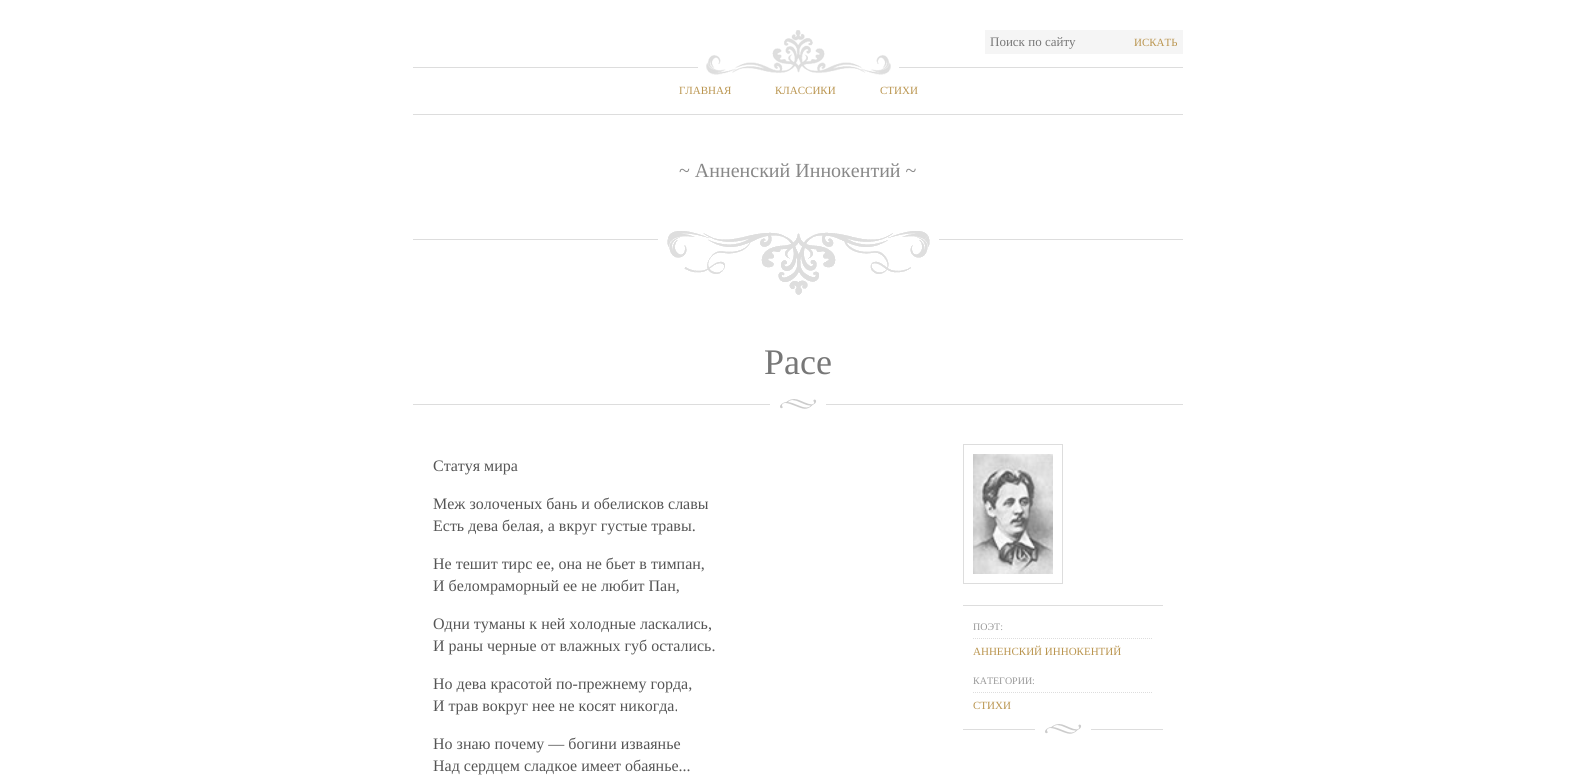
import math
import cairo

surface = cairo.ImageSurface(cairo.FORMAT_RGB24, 1596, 782)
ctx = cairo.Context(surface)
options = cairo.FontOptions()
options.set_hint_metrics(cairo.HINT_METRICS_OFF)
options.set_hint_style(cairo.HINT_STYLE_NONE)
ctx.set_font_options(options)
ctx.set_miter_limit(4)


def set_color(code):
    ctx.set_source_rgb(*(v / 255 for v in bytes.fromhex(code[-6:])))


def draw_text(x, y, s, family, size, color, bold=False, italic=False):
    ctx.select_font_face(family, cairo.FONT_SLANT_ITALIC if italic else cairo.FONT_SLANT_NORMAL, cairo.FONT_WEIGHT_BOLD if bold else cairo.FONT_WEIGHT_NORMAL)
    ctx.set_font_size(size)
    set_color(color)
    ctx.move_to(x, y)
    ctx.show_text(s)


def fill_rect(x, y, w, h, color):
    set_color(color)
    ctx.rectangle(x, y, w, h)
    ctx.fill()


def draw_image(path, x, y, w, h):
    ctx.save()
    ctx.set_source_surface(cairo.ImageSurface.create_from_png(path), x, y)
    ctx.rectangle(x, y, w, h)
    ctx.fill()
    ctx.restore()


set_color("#ffffff")
ctx.paint()
draw_image("assets/img1.png", 413, 30, 770, 45)
fill_rect(985, 30, 198, 24, "#f5f5f5")
draw_text(990, 46, "Поиск по сайту", "Liberation Serif", 13, "#777777")
draw_text(1134, 46, "ИСКАТЬ", "Liberation Serif", 11, "#ba954f")
fill_rect(413, 114, 770, 1, "#dddddd")
draw_text(679, 94, "ГЛАВНАЯ", "Liberation Serif", 11, "#ba954f")
draw_text(775, 94, "КЛАССИКИ", "Liberation Serif", 11, "#ba954f")
draw_text(880, 94, "СТИХИ", "Liberation Serif", 11, "#ba954f")
draw_image("assets/img2.png", 413, 231, 770, 64)
draw_text(679, 177, "~ Анненский Иннокентий ~", "Liberation Serif", 20, "#888888")
draw_image("assets/img3.png", 413, 399, 770, 10)
draw_text(764, 374, "Pace", "Liberation Serif", 36, "#777777")
draw_text(433, 471, "Статуя мира", "Liberation Serif", 16, "#555555")
draw_text(433, 509, "Меж золоченых бань и обелисков славы", "Liberation Serif", 16, "#555555")
draw_text(433, 531, "Есть дева белая, а вкруг густые травы.", "Liberation Serif", 16, "#555555")
draw_text(433, 569, "Не тешит тирс ее, она не бьет в тимпан,", "Liberation Serif", 16, "#555555")
draw_text(433, 591, "И беломраморный ее не любит Пан,", "Liberation Serif", 16, "#555555")
draw_text(433, 629, "Одни туманы к ней холодные ласкались,", "Liberation Serif", 16, "#555555")
draw_text(433, 651, "И раны черные от влажных губ остались.", "Liberation Serif", 16, "#555555")
draw_text(433, 689, "Но дева красотой по-прежнему горда,", "Liberation Serif", 16, "#555555")
draw_text(433, 711, "И трав вокруг нее не косят никогда.", "Liberation Serif", 16, "#555555")
draw_text(433, 749, "Но знаю почему — богини изваянье", "Liberation Serif", 16, "#555555")
draw_text(433, 771, "Над сердцем сладкое имеет обаянье...", "Liberation Serif", 16, "#555555")
ctx.rectangle(963.5, 444.5, 99, 139)
set_color("#dddddd")
ctx.set_line_width(1)
ctx.stroke()
draw_image("assets/img4.png", 973, 454, 80, 120)
draw_image("assets/img5.png", 963, 724, 200, 10)
fill_rect(963, 605, 200, 1, "#dddddd")
ctx.new_path()
ctx.move_to(973, 638.5)
ctx.line_to(1153, 638.5)
ctx.set_dash([1, 1])
ctx.stroke()
draw_text(973, 630, "ПОЭТ:", "Liberation Serif", 10, "#999999")
draw_text(973, 655, "АННЕНСКИЙ ИННОКЕНТИЙ", "Liberation Serif", 11, "#ba954f")
ctx.new_path()
ctx.move_to(973, 692.5)
ctx.line_to(1153, 692.5)
set_color("#dddddd")
ctx.stroke()
draw_text(973, 684, "КАТЕГОРИИ:", "Liberation Serif", 10, "#999999")
draw_text(973, 709, "СТИХИ", "Liberation Serif", 11, "#ba954f")
surface.write_to_png("output.png")
